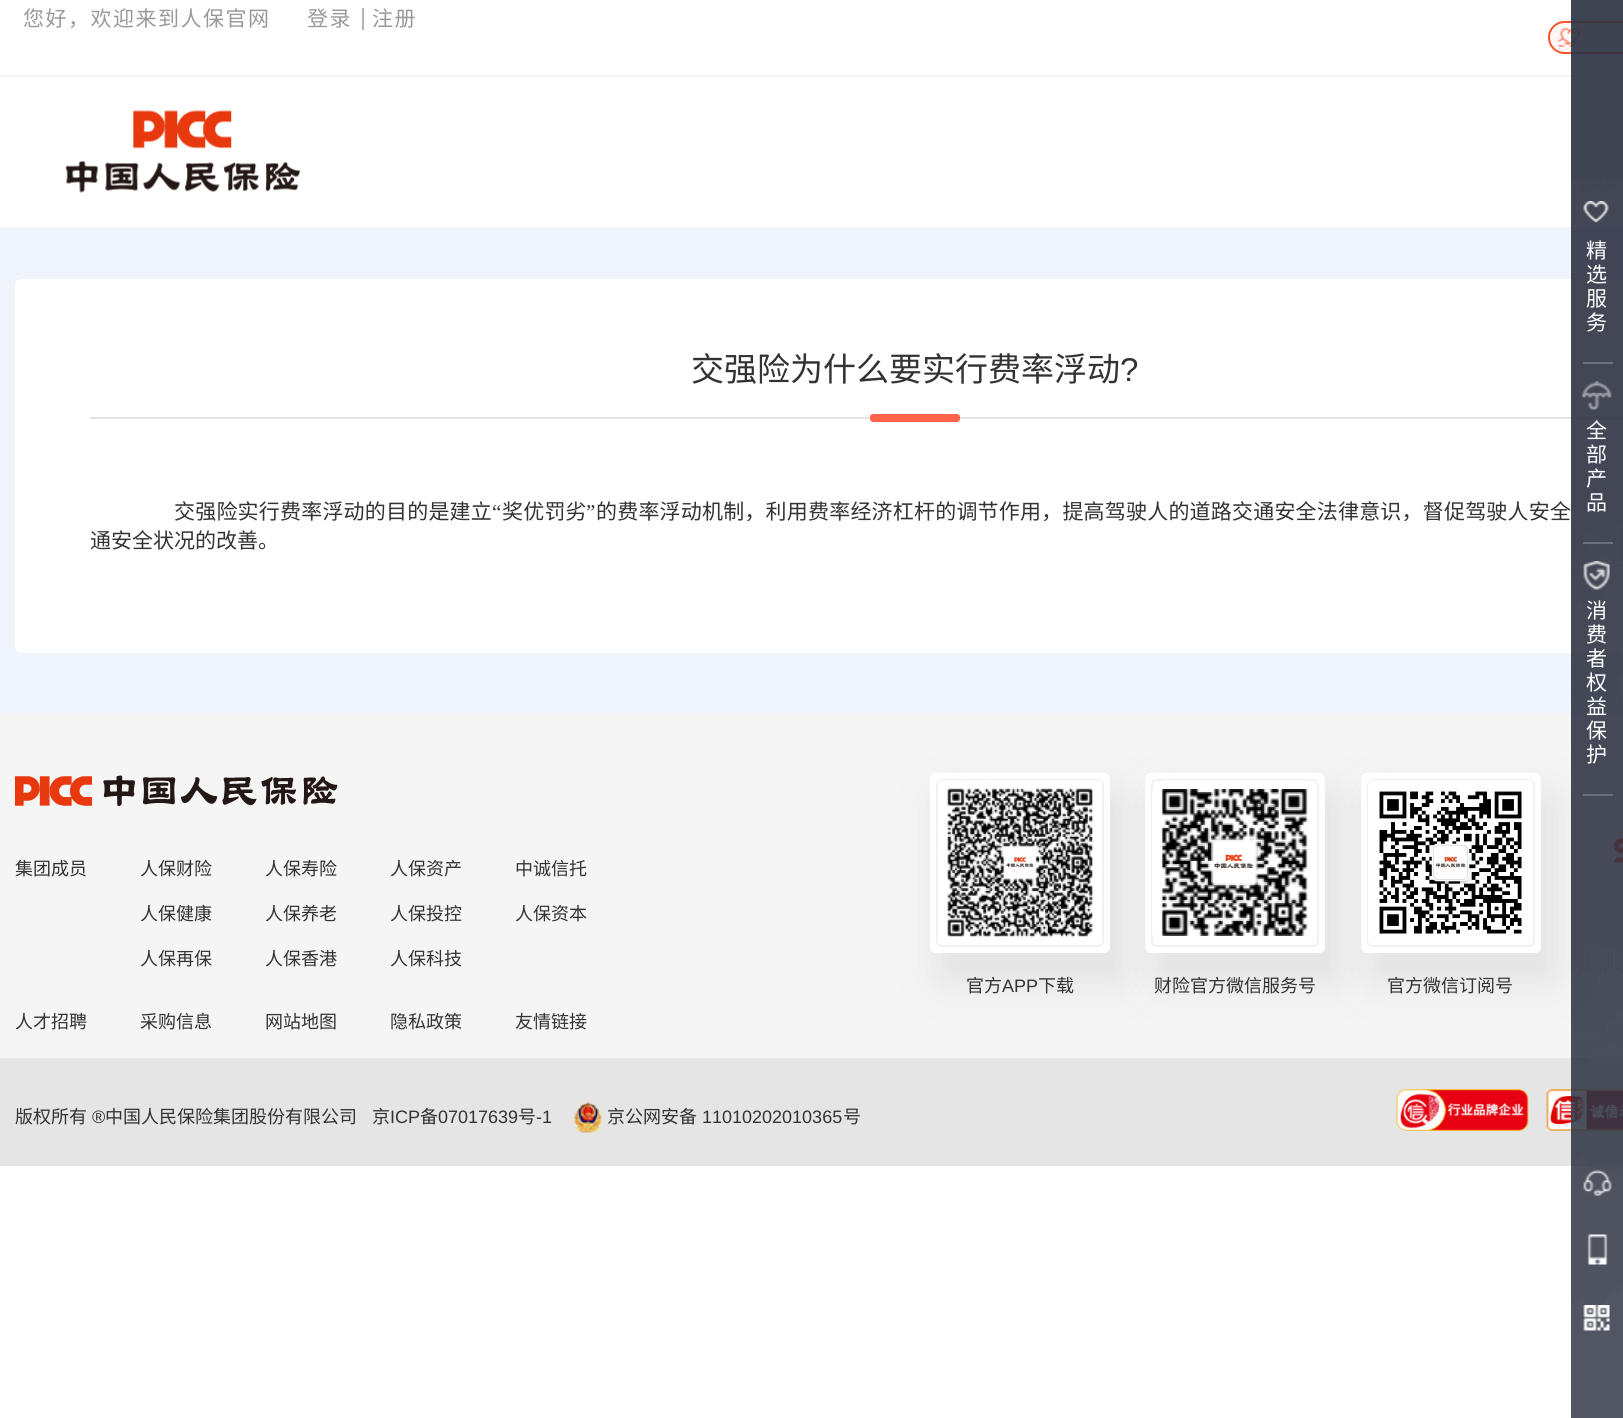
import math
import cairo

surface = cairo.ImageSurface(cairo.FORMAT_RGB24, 1623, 1418)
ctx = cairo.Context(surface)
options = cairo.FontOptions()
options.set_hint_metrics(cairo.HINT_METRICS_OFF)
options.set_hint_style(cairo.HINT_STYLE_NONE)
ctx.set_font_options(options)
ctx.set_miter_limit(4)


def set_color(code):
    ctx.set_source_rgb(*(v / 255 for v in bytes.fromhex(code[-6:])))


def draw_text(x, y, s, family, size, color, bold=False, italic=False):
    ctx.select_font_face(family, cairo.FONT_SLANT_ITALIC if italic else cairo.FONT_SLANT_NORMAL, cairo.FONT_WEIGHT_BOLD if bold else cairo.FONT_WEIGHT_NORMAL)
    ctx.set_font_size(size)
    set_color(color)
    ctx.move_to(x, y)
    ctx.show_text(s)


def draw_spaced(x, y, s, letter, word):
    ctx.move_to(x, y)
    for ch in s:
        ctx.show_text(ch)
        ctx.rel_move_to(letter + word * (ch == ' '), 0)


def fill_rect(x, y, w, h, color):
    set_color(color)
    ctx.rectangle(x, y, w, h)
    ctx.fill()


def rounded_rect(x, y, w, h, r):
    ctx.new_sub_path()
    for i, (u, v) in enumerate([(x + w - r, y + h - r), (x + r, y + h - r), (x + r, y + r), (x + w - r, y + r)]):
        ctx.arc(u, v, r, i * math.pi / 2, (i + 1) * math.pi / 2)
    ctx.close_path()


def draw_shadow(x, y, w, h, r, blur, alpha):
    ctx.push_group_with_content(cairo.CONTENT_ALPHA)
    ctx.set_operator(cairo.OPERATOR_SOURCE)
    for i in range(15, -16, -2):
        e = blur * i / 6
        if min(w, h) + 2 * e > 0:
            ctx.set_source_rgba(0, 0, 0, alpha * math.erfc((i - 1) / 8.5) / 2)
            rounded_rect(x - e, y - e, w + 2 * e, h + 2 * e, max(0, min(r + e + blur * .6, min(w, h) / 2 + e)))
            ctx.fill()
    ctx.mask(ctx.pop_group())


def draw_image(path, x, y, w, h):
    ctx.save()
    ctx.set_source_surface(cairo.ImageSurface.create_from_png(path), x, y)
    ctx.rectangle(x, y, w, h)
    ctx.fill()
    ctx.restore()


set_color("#ffffff")
ctx.paint()
fill_rect(0, 75, 1623, 2, "#f5f5f5")
ctx.select_font_face("Noto Sans CJK SC")
ctx.set_font_size(21)
set_color("#999999")
draw_spaced(23, 26, "您好，欢迎来到人保官网", 1.5, 0)
draw_spaced(307, 26, "登录", 1.5, 0)
fill_rect(362, 8, 2, 22, "#b4b4b4")
set_color("#999999")
draw_spaced(372, 26, "注册", 1.5, 0)
set_color("#fff8f7")
rounded_rect(1549, 22, 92, 31, 15.5)
ctx.fill_preserve()
set_color("#ff532b")
ctx.stroke()
draw_image("assets/img1.png", 1558, 28, 22, 19)
draw_image("assets/img2.png", 65, 110, 236, 83)
fill_rect(0, 227, 1623, 486, "#f0f4fb")
set_color("#ffffff")
rounded_rect(15, 279, 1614, 374, 6)
ctx.fill()
fill_rect(90, 417, 1533, 2, "#e4e4e4")
draw_text(691, 381, "交强险为什么要实行费率浮动", "Noto Sans CJK SC", 33, "#333333")
draw_text(1120, 381, "?", "Liberation Sans", 33, "#333333")
set_color("#ff644b")
rounded_rect(870, 414, 90, 8, 3)
ctx.fill()
ctx.select_font_face("Noto Sans CJK SC")
ctx.set_font_size(21)
set_color("#333333")
draw_spaced(174, 519, "交强险实行费率浮动的目的是建立", 0.2, 0)
ctx.select_font_face("Liberation Serif")
draw_spaced(492, 519, "“", 0.2, 0)
ctx.select_font_face("Noto Sans CJK SC")
draw_spaced(502, 519, "奖优罚劣", 0.2, 0)
ctx.select_font_face("Liberation Serif")
draw_spaced(586, 519, "”", 0.2, 0)
ctx.select_font_face("Noto Sans CJK SC")
draw_spaced(596, 519, "的费率浮动机制，利用费率经济杠杆的调节作用，提高驾驶人的道路交通安全法律意识，督促驾驶人安全", 0.2, 0)
draw_text(90, 548, "通安全状况的改善。", "Noto Sans CJK SC", 21, "#333333")
fill_rect(0, 713, 1623, 345, "#f5f5f5")
set_color("#e5e5e5")
draw_shadow(933, 789, 198, 198, 15, 18, 1)
set_color("#ffffff")
rounded_rect(930, 773, 180, 180, 6)
ctx.fill()
rounded_rect(937, 780, 166, 166, 5)
set_color("#f1f1f1")
ctx.stroke()
draw_image("assets/img12.png", 938, 780, 164, 164)
set_color("#e5e5e5")
draw_shadow(1148, 789, 198, 198, 15, 18, 1)
set_color("#ffffff")
rounded_rect(1145, 773, 180, 180, 6)
ctx.fill()
rounded_rect(1152, 780, 166, 166, 5)
set_color("#f1f1f1")
ctx.stroke()
set_color("#e5e5e5")
draw_shadow(1364, 789, 198, 198, 15, 18, 1)
draw_image("assets/img11.png", 1614, 838, 9, 25)
fill_rect(0, 1058, 1623, 108, "#e5e5e5")
draw_image("assets/img17.png", 1546, 1089, 77, 42)
draw_image("assets/img3.png", 1571, 0, 52, 1418)
draw_image("assets/img4.png", 1583, 201, 26, 22)
fill_rect(1583, 362, 30, 2, "#6c707b")
draw_text(1586, 258, "精", "Noto Sans CJK SC", 21, "#ffffff")
draw_text(1586, 282, "选", "Noto Sans CJK SC", 21, "#ffffff")
draw_text(1586, 306, "服", "Noto Sans CJK SC", 21, "#ffffff")
draw_text(1586, 330, "务", "Noto Sans CJK SC", 21, "#ffffff")
draw_image("assets/img5.png", 1582, 381, 30, 29)
fill_rect(1583, 542, 30, 2, "#6c707b")
draw_text(1586, 438, "全", "Noto Sans CJK SC", 21, "#ffffff")
draw_text(1586, 462, "部", "Noto Sans CJK SC", 21, "#ffffff")
draw_text(1586, 486, "产", "Noto Sans CJK SC", 21, "#ffffff")
draw_text(1586, 510, "品", "Noto Sans CJK SC", 21, "#ffffff")
draw_image("assets/img6.png", 1583, 561, 27, 29)
fill_rect(1583, 794, 30, 2, "#6c707b")
draw_text(1586, 618, "消", "Noto Sans CJK SC", 21, "#ffffff")
draw_text(1586, 642, "费", "Noto Sans CJK SC", 21, "#ffffff")
draw_text(1586, 666, "者", "Noto Sans CJK SC", 21, "#ffffff")
draw_text(1586, 690, "权", "Noto Sans CJK SC", 21, "#ffffff")
draw_text(1586, 714, "益", "Noto Sans CJK SC", 21, "#ffffff")
draw_text(1586, 738, "保", "Noto Sans CJK SC", 21, "#ffffff")
draw_text(1586, 762, "护", "Noto Sans CJK SC", 21, "#ffffff")
draw_image("assets/img7.png", 1583, 1169, 29, 27)
draw_image("assets/img8.png", 1587, 1234, 21, 31)
draw_image("assets/img9.png", 1583, 1305, 27, 26)
draw_image("assets/img10.png", 15, 775, 323, 31)
draw_text(15, 875, "集团成员", "Noto Sans CJK SC", 18, "#333333")
draw_text(140, 875, "人保财险", "Noto Sans CJK SC", 18, "#333333")
draw_text(265, 875, "人保寿险", "Noto Sans CJK SC", 18, "#333333")
draw_text(390, 875, "人保资产", "Noto Sans CJK SC", 18, "#333333")
draw_text(515, 875, "中诚信托", "Noto Sans CJK SC", 18, "#333333")
draw_text(140, 920, "人保健康", "Noto Sans CJK SC", 18, "#333333")
draw_text(265, 920, "人保养老", "Noto Sans CJK SC", 18, "#333333")
draw_text(390, 920, "人保投控", "Noto Sans CJK SC", 18, "#333333")
draw_text(515, 920, "人保资本", "Noto Sans CJK SC", 18, "#333333")
draw_text(140, 965, "人保再保", "Noto Sans CJK SC", 18, "#333333")
draw_text(265, 965, "人保香港", "Noto Sans CJK SC", 18, "#333333")
draw_text(390, 965, "人保科技", "Noto Sans CJK SC", 18, "#333333")
draw_text(15, 1028, "人才招聘", "Noto Sans CJK SC", 18, "#333333")
draw_text(140, 1028, "采购信息", "Noto Sans CJK SC", 18, "#333333")
draw_text(265, 1028, "网站地图", "Noto Sans CJK SC", 18, "#333333")
draw_text(390, 1028, "隐私政策", "Noto Sans CJK SC", 18, "#333333")
draw_text(515, 1028, "友情链接", "Noto Sans CJK SC", 18, "#333333")
draw_text(966, 992, "官方", "Noto Sans CJK SC", 18, "#333333")
draw_text(1002, 992, "APP", "Liberation Sans", 18, "#333333")
draw_text(1038, 992, "下载", "Noto Sans CJK SC", 18, "#333333")
draw_image("assets/img13.png", 1152, 780, 156, 156)
draw_text(1154, 992, "财险官方微信服务号", "Noto Sans CJK SC", 18, "#333333")
set_color("#ffffff")
rounded_rect(1361, 773, 180, 180, 6)
ctx.fill()
rounded_rect(1368, 780, 166, 166, 5)
set_color("#f1f1f1")
ctx.stroke()
draw_image("assets/img14.png", 1368, 780, 165, 165)
draw_text(1387, 992, "官方微信订阅号", "Noto Sans CJK SC", 18, "#333333")
draw_text(15, 1123, "版权所有", "Noto Sans CJK SC", 18, "#333333")
draw_text(92, 1123, "®", "Liberation Sans", 18, "#333333")
draw_text(105, 1123, "中国人民保险集团股份有限公司", "Noto Sans CJK SC", 18, "#333333")
draw_text(372, 1123, "京", "Noto Sans CJK SC", 18, "#333333")
draw_text(390, 1123, "ICP", "Liberation Sans", 18, "#333333")
draw_text(420, 1123, "备", "Noto Sans CJK SC", 18, "#333333")
draw_text(438, 1123, "07017639", "Liberation Sans", 18, "#333333")
draw_text(518, 1123, "号", "Noto Sans CJK SC", 18, "#333333")
draw_text(536, 1123, "-1", "Liberation Sans", 18, "#333333")
draw_image("assets/img15.png", 574, 1102, 28, 31)
draw_text(607, 1123, "京公网安备", "Noto Sans CJK SC", 18, "#333333")
draw_text(702, 1123, "11010202010365", "Liberation Sans", 18, "#333333")
draw_text(843, 1123, "号", "Noto Sans CJK SC", 18, "#333333")
draw_image("assets/img16.png", 1396, 1089, 133, 42)
surface.write_to_png("output.png")
